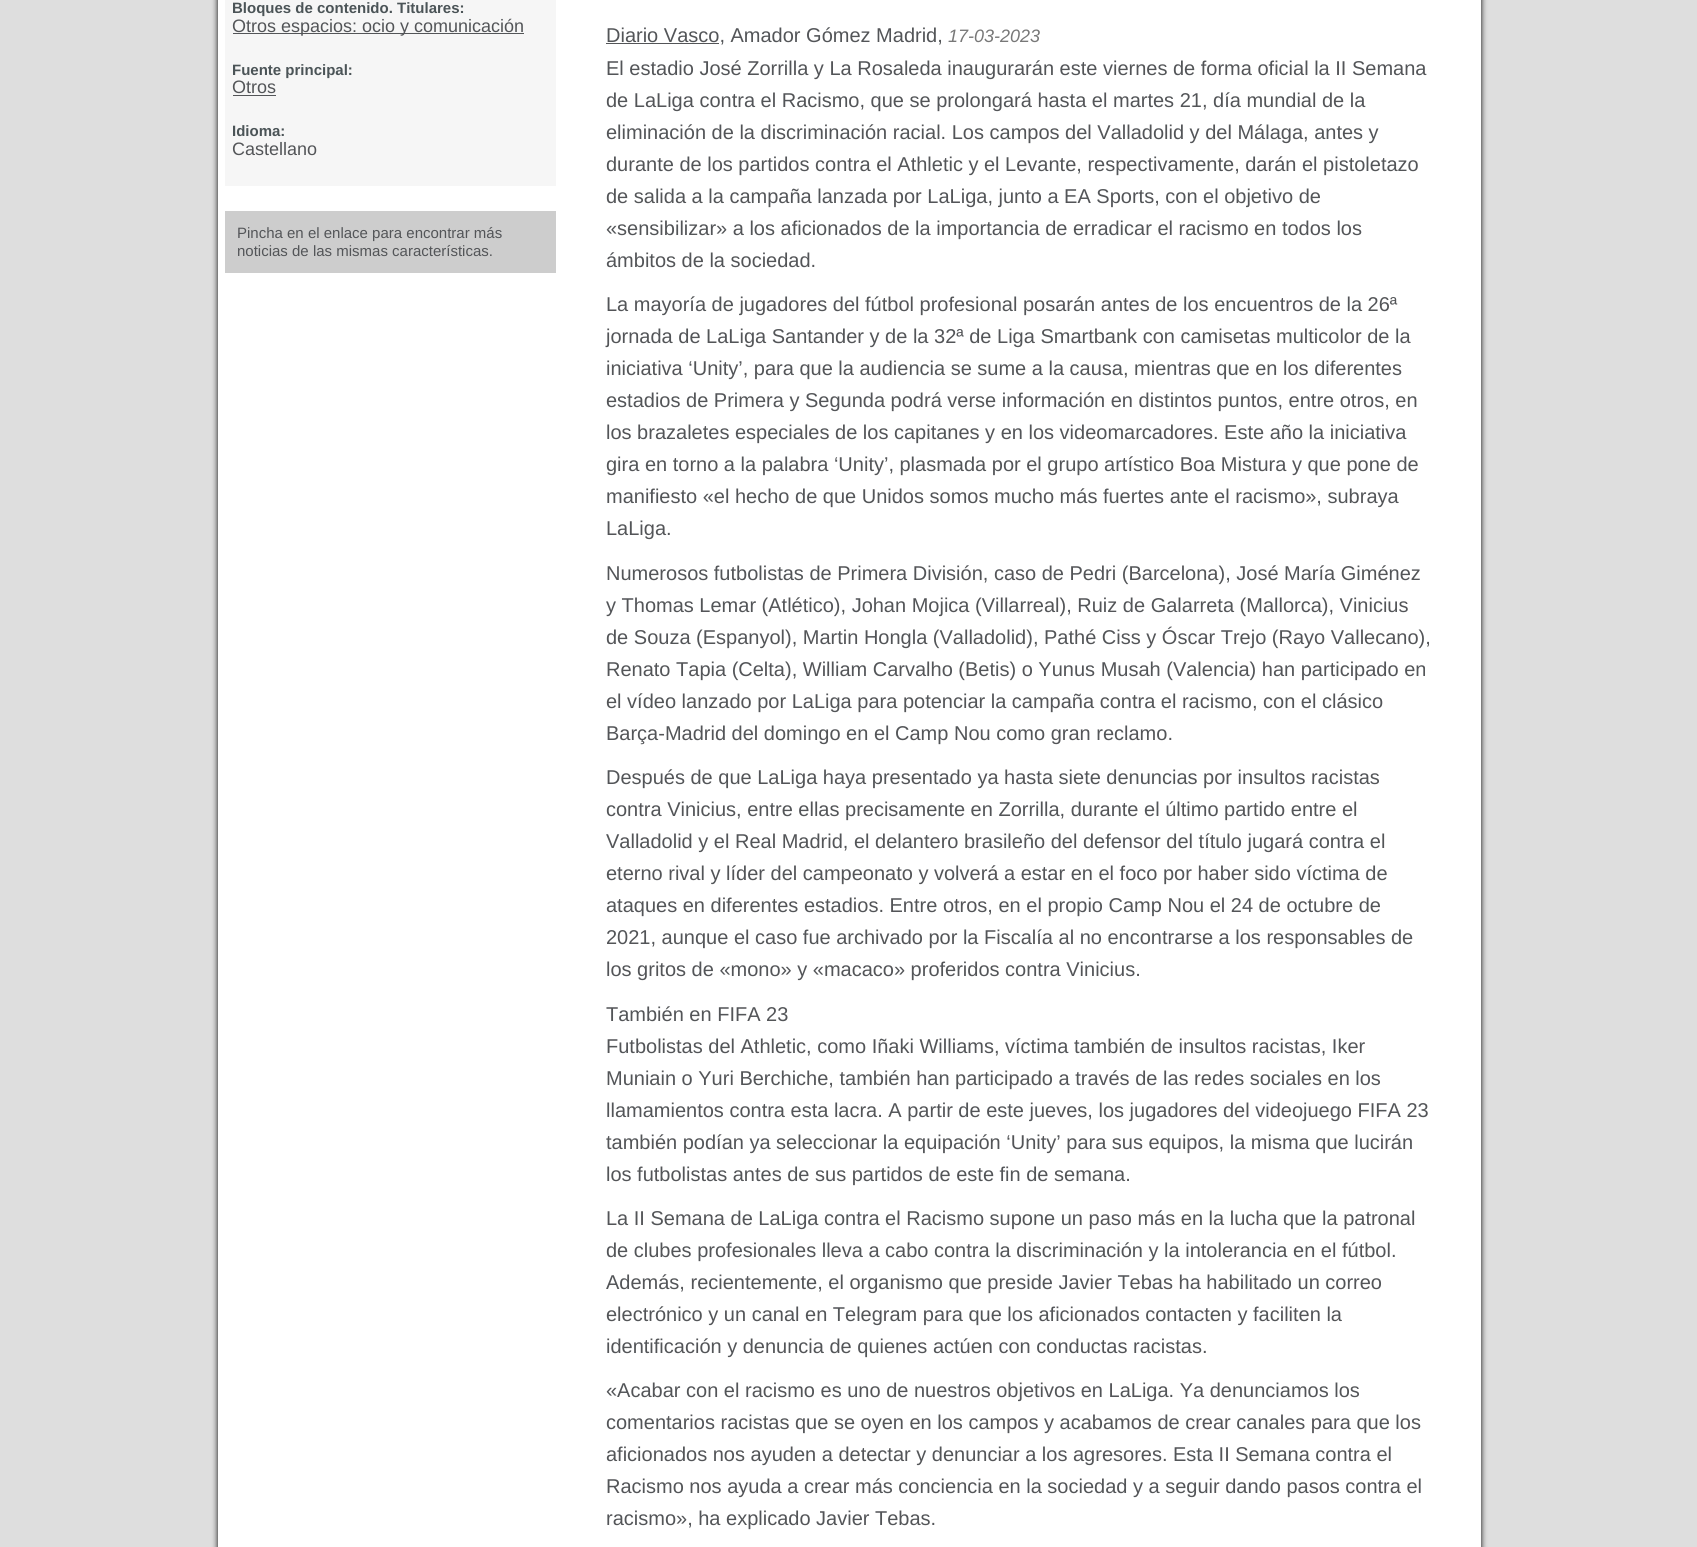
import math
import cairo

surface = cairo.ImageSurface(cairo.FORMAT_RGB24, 1697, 1547)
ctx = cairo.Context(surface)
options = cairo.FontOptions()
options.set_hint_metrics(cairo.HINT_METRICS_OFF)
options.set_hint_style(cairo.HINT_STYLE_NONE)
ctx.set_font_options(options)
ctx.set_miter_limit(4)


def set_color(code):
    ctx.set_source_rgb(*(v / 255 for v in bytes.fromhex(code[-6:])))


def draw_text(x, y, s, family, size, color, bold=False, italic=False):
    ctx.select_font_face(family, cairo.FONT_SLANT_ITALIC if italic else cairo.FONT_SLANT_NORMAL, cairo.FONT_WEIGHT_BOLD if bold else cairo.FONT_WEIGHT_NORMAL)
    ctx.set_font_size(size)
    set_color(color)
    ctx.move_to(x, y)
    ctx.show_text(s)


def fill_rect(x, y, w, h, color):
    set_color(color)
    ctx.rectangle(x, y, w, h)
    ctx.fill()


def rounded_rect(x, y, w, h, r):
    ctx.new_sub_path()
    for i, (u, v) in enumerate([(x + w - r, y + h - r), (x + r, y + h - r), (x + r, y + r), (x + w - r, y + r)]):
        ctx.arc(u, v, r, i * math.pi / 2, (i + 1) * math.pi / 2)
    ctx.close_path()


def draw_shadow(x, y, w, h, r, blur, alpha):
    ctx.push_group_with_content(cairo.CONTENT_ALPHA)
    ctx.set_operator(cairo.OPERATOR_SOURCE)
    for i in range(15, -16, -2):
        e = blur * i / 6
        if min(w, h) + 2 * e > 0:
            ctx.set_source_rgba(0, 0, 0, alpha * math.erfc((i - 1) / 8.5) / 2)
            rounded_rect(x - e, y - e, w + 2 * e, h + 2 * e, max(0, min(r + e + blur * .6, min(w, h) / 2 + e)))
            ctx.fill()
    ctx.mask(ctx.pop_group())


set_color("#dedede")
ctx.paint()
set_color("#000000")
draw_shadow(218, -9, 1263, 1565, 0, 3, 1)
fill_rect(218, 0, 1263, 1547, "#ffffff")
fill_rect(225, 0, 331, 186, "#f6f6f6")
draw_text(232, 13, "Bloques de contenido. Titulares:", "Liberation Sans", 15, "#4b5457", bold=True)
fill_rect(233, 33, 291, 1, "#535558")
draw_text(232, 32, "Otros espacios: ocio y comunicación", "Liberation Sans", 18, "#535558")
draw_text(232, 75, "Fuente principal:", "Liberation Sans", 15, "#4b5457", bold=True)
draw_text(232, 93, "Otros", "Liberation Sans", 18, "#535558")
fill_rect(233, 95, 43, 1, "#535558")
draw_text(232, 136, "Idioma:", "Liberation Sans", 15, "#4b5457", bold=True)
draw_text(232, 155, "Castellano", "Liberation Sans", 18, "#535558")
fill_rect(225, 211, 331, 62, "#cdcdcd")
draw_text(237, 238, "Pincha en el enlace para encontrar más", "Liberation Sans", 15, "#535558")
draw_text(237, 256, "noticias de las mismas características.", "Liberation Sans", 15, "#535558")
fill_rect(606, 43, 113, 1, "#535558")
draw_text(606, 42, "Diario Vasco, Amador Gómez Madrid,", "Liberation Sans", 20, "#535558")
draw_text(948, 42, "17-03-2023", "Liberation Sans", 18, "#787878", italic=True)
draw_text(606, 75, "El estadio José Zorrilla y La Rosaleda inaugurarán este viernes de forma oficial la II Semana", "Liberation Sans", 20, "#535558")
draw_text(606, 107, "de LaLiga contra el Racismo, que se prolongará hasta el martes 21, día mundial de la", "Liberation Sans", 20, "#535558")
draw_text(606, 139, "eliminación de la discriminación racial. Los campos del Valladolid y del Málaga, antes y", "Liberation Sans", 20, "#535558")
draw_text(606, 171, "durante de los partidos contra el Athletic y el Levante, respectivamente, darán el pistoletazo", "Liberation Sans", 20, "#535558")
draw_text(606, 203, "de salida a la campaña lanzada por LaLiga, junto a EA Sports, con el objetivo de", "Liberation Sans", 20, "#535558")
draw_text(606, 235, "«sensibilizar» a los aficionados de la importancia de erradicar el racismo en todos los", "Liberation Sans", 20, "#535558")
draw_text(606, 267, "ámbitos de la sociedad.", "Liberation Sans", 20, "#535558")
draw_text(606, 311, "La mayoría de jugadores del fútbol profesional posarán antes de los encuentros de la 26ª", "Liberation Sans", 20, "#535558")
draw_text(606, 343, "jornada de LaLiga Santander y de la 32ª de Liga Smartbank con camisetas multicolor de la", "Liberation Sans", 20, "#535558")
draw_text(606, 375, "iniciativa ‘Unity’, para que la audiencia se sume a la causa, mientras que en los diferentes", "Liberation Sans", 20, "#535558")
draw_text(606, 407, "estadios de Primera y Segunda podrá verse información en distintos puntos, entre otros, en", "Liberation Sans", 20, "#535558")
draw_text(606, 439, "los brazaletes especiales de los capitanes y en los videomarcadores. Este año la iniciativa", "Liberation Sans", 20, "#535558")
draw_text(606, 471, "gira en torno a la palabra ‘Unity’, plasmada por el grupo artístico Boa Mistura y que pone de", "Liberation Sans", 20, "#535558")
draw_text(606, 503, "manifiesto «el hecho de que Unidos somos mucho más fuertes ante el racismo», subraya", "Liberation Sans", 20, "#535558")
draw_text(606, 535, "LaLiga.", "Liberation Sans", 20, "#535558")
draw_text(606, 580, "Numerosos futbolistas de Primera División, caso de Pedri (Barcelona), José María Giménez", "Liberation Sans", 20, "#535558")
draw_text(606, 612, "y Thomas Lemar (Atlético), Johan Mojica (Villarreal), Ruiz de Galarreta (Mallorca), Vinicius", "Liberation Sans", 20, "#535558")
draw_text(606, 644, "de Souza (Espanyol), Martin Hongla (Valladolid), Pathé Ciss y Óscar Trejo (Rayo Vallecano),", "Liberation Sans", 20, "#535558")
draw_text(606, 676, "Renato Tapia (Celta), William Carvalho (Betis) o Yunus Musah (Valencia) han participado en", "Liberation Sans", 20, "#535558")
draw_text(606, 708, "el vídeo lanzado por LaLiga para potenciar la campaña contra el racismo, con el clásico", "Liberation Sans", 20, "#535558")
draw_text(606, 740, "Barça-Madrid del domingo en el Camp Nou como gran reclamo.", "Liberation Sans", 20, "#535558")
draw_text(606, 784, "Después de que LaLiga haya presentado ya hasta siete denuncias por insultos racistas", "Liberation Sans", 20, "#535558")
draw_text(606, 816, "contra Vinicius, entre ellas precisamente en Zorrilla, durante el último partido entre el", "Liberation Sans", 20, "#535558")
draw_text(606, 848, "Valladolid y el Real Madrid, el delantero brasileño del defensor del título jugará contra el", "Liberation Sans", 20, "#535558")
draw_text(606, 880, "eterno rival y líder del campeonato y volverá a estar en el foco por haber sido víctima de", "Liberation Sans", 20, "#535558")
draw_text(606, 912, "ataques en diferentes estadios. Entre otros, en el propio Camp Nou el 24 de octubre de", "Liberation Sans", 20, "#535558")
draw_text(606, 944, "2021, aunque el caso fue archivado por la Fiscalía al no encontrarse a los responsables de", "Liberation Sans", 20, "#535558")
draw_text(606, 976, "los gritos de «mono» y «macaco» proferidos contra Vinicius.", "Liberation Sans", 20, "#535558")
draw_text(606, 1021, "También en FIFA 23", "Liberation Sans", 20, "#535558")
draw_text(606, 1053, "Futbolistas del Athletic, como Iñaki Williams, víctima también de insultos racistas, Iker", "Liberation Sans", 20, "#535558")
draw_text(606, 1085, "Muniain o Yuri Berchiche, también han participado a través de las redes sociales en los", "Liberation Sans", 20, "#535558")
draw_text(606, 1117, "llamamientos contra esta lacra. A partir de este jueves, los jugadores del videojuego FIFA 23", "Liberation Sans", 20, "#535558")
draw_text(606, 1149, "también podían ya seleccionar la equipación ‘Unity’ para sus equipos, la misma que lucirán", "Liberation Sans", 20, "#535558")
draw_text(606, 1181, "los futbolistas antes de sus partidos de este fin de semana.", "Liberation Sans", 20, "#535558")
draw_text(606, 1225, "La II Semana de LaLiga contra el Racismo supone un paso más en la lucha que la patronal", "Liberation Sans", 20, "#535558")
draw_text(606, 1257, "de clubes profesionales lleva a cabo contra la discriminación y la intolerancia en el fútbol.", "Liberation Sans", 20, "#535558")
draw_text(606, 1289, "Además, recientemente, el organismo que preside Javier Tebas ha habilitado un correo", "Liberation Sans", 20, "#535558")
draw_text(606, 1321, "electrónico y un canal en Telegram para que los aficionados contacten y faciliten la", "Liberation Sans", 20, "#535558")
draw_text(606, 1353, "identificación y denuncia de quienes actúen con conductas racistas.", "Liberation Sans", 20, "#535558")
draw_text(606, 1397, "«Acabar con el racismo es uno de nuestros objetivos en LaLiga. Ya denunciamos los", "Liberation Sans", 20, "#535558")
draw_text(606, 1429, "comentarios racistas que se oyen en los campos y acabamos de crear canales para que los", "Liberation Sans", 20, "#535558")
draw_text(606, 1461, "aficionados nos ayuden a detectar y denunciar a los agresores. Esta II Semana contra el", "Liberation Sans", 20, "#535558")
draw_text(606, 1493, "Racismo nos ayuda a crear más conciencia en la sociedad y a seguir dando pasos contra el", "Liberation Sans", 20, "#535558")
draw_text(606, 1525, "racismo», ha explicado Javier Tebas.", "Liberation Sans", 20, "#535558")
surface.write_to_png("output.png")
